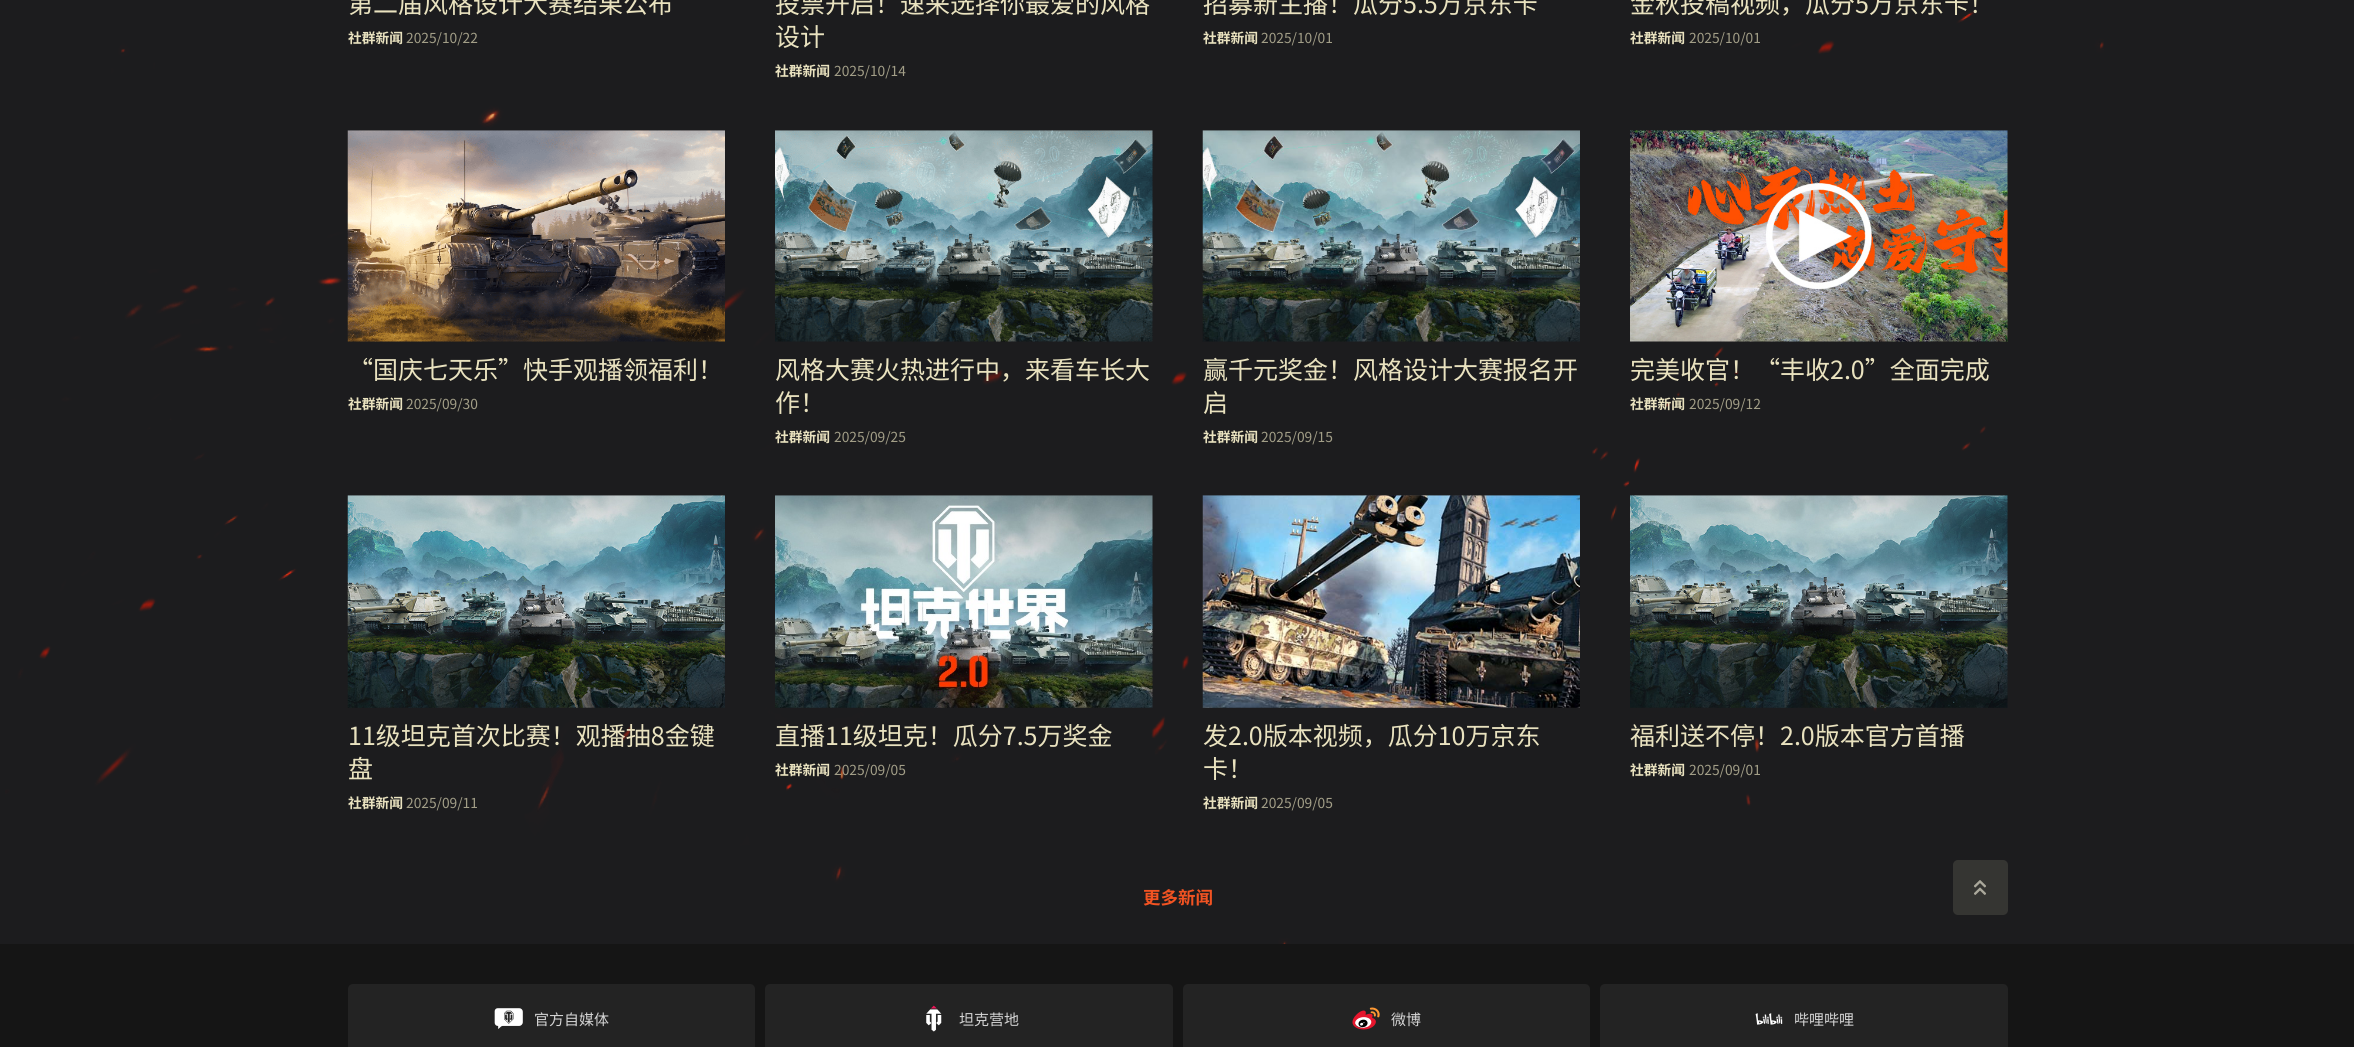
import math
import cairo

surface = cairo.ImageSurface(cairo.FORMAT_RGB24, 2354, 1047)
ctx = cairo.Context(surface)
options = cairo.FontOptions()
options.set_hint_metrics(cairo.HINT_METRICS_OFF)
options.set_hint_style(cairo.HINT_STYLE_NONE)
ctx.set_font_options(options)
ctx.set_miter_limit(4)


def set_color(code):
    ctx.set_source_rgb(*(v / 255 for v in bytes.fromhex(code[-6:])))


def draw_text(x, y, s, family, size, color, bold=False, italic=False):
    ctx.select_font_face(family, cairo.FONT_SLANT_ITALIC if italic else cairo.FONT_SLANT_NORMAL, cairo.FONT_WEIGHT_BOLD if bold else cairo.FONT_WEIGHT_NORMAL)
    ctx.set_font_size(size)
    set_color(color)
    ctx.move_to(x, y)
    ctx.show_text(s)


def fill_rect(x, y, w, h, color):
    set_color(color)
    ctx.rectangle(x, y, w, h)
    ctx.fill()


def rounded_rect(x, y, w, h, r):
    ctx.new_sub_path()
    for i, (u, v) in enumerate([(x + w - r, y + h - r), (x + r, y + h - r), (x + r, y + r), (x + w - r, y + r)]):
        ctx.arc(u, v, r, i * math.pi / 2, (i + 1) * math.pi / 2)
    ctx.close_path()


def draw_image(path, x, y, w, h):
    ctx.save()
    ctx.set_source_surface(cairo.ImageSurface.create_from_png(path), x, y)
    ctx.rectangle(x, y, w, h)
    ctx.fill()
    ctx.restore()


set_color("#1c1c1e")
ctx.paint()
draw_image("assets/img1.png", 5, 0, 2099, 944)
draw_text(348, 13, "第二届风格设计大赛结果公布", "Noto Sans SC", 25, "#e9e2bf")
draw_text(348, 43, "社群新闻", "Noto Sans SC", 13.75, "#e9e2bf", bold=True)
draw_text(406, 43, "2025/10/22", "Noto Sans SC", 13.75, "#a29e87")
draw_text(775, 13, "投票开启！速来选择你最爱的风格", "Noto Sans SC", 25, "#e9e2bf")
draw_text(775, 46, "设计", "Noto Sans SC", 25, "#e9e2bf")
draw_text(775, 76, "社群新闻", "Noto Sans SC", 13.75, "#e9e2bf", bold=True)
draw_text(834, 76, "2025/10/14", "Noto Sans SC", 13.75, "#a29e87")
draw_text(1203, 13, "招募新主播！瓜分5.5万京东卡", "Noto Sans SC", 25, "#e9e2bf")
draw_text(1203, 43, "社群新闻", "Noto Sans SC", 13.75, "#e9e2bf", bold=True)
draw_text(1261, 43, "2025/10/01", "Noto Sans SC", 13.75, "#a29e87")
draw_text(1630, 13, "金秋投稿视频，瓜分5万京东卡！", "Noto Sans SC", 25, "#e9e2bf")
draw_text(1630, 43, "社群新闻", "Noto Sans SC", 13.75, "#e9e2bf", bold=True)
draw_text(1689, 43, "2025/10/01", "Noto Sans SC", 13.75, "#a29e87")
draw_image("assets/img2.png", 347, 130, 378, 212)
draw_text(348, 379, "“国庆七天乐”快手观播领福利！", "Noto Sans SC", 25, "#e9e2bf")
draw_text(348, 409, "社群新闻", "Noto Sans SC", 13.75, "#e9e2bf", bold=True)
draw_text(406, 409, "2025/09/30", "Noto Sans SC", 13.75, "#a29e87")
draw_image("assets/img3.png", 775, 130, 378, 212)
draw_text(775, 379, "风格大赛火热进行中，来看车长大", "Noto Sans SC", 25, "#e9e2bf")
draw_text(775, 412, "作！", "Noto Sans SC", 25, "#e9e2bf")
draw_text(775, 442, "社群新闻", "Noto Sans SC", 13.75, "#e9e2bf", bold=True)
draw_text(834, 442, "2025/09/25", "Noto Sans SC", 13.75, "#a29e87")
draw_image("assets/img4.png", 1202, 130, 378, 212)
draw_text(1203, 379, "赢千元奖金！风格设计大赛报名开", "Noto Sans SC", 25, "#e9e2bf")
draw_text(1203, 412, "启", "Noto Sans SC", 25, "#e9e2bf")
draw_text(1203, 442, "社群新闻", "Noto Sans SC", 13.75, "#e9e2bf", bold=True)
draw_text(1261, 442, "2025/09/15", "Noto Sans SC", 13.75, "#a29e87")
draw_image("assets/img5.png", 1630, 130, 378, 212)
draw_text(1630, 379, "完美收官！“丰收2.0”全面完成", "Noto Sans SC", 25, "#e9e2bf")
draw_text(1630, 409, "社群新闻", "Noto Sans SC", 13.75, "#e9e2bf", bold=True)
draw_text(1689, 409, "2025/09/12", "Noto Sans SC", 13.75, "#a29e87")
draw_image("assets/img6.png", 347, 495, 378, 213)
draw_text(348, 745, "11级坦克首次比赛！观播抽8金键", "Noto Sans SC", 25, "#e9e2bf")
draw_text(348, 778, "盘", "Noto Sans SC", 25, "#e9e2bf")
draw_text(348, 808, "社群新闻", "Noto Sans SC", 13.75, "#e9e2bf", bold=True)
draw_text(406, 808, "2025/09/11", "Noto Sans SC", 13.75, "#a29e87")
draw_image("assets/img7.png", 775, 495, 378, 213)
draw_text(775, 745, "直播11级坦克！瓜分7.5万奖金", "Noto Sans SC", 25, "#e9e2bf")
draw_text(775, 775, "社群新闻", "Noto Sans SC", 13.75, "#e9e2bf", bold=True)
draw_text(834, 775, "2025/09/05", "Noto Sans SC", 13.75, "#a29e87")
draw_image("assets/img8.png", 1202, 495, 378, 213)
draw_text(1203, 745, "发2.0版本视频，瓜分10万京东", "Noto Sans SC", 25, "#e9e2bf")
draw_text(1203, 778, "卡！", "Noto Sans SC", 25, "#e9e2bf")
draw_text(1203, 808, "社群新闻", "Noto Sans SC", 13.75, "#e9e2bf", bold=True)
draw_text(1261, 808, "2025/09/05", "Noto Sans SC", 13.75, "#a29e87")
draw_image("assets/img9.png", 1630, 495, 378, 213)
draw_text(1630, 745, "福利送不停！2.0版本官方首播", "Noto Sans SC", 25, "#e9e2bf")
draw_text(1630, 775, "社群新闻", "Noto Sans SC", 13.75, "#e9e2bf", bold=True)
draw_text(1689, 775, "2025/09/01", "Noto Sans SC", 13.75, "#a29e87")
draw_text(1143, 904, "更多新闻", "Noto Sans SC", 17.5, "#f25322", bold=True)
set_color("#353532")
rounded_rect(1953, 860, 55, 55, 5)
ctx.fill()
draw_image("assets/img10.png", 1974, 880, 12, 15)
fill_rect(0, 944, 2354, 103, "#151515")
set_color("#232323")
rounded_rect(348, 984, 407, 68, 5)
ctx.fill()
draw_image("assets/img11.png", 494, 1008, 29, 21)
draw_text(534, 1025, "官方自媒体", "Noto Sans SC", 15, "#d3d3d3")
set_color("#232323")
rounded_rect(765, 984, 408, 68, 5)
ctx.fill()
draw_image("assets/img12.png", 926, 1005, 16, 27)
draw_text(959, 1025, "坦克营地", "Noto Sans SC", 15, "#d3d3d3")
set_color("#232323")
rounded_rect(1183, 984, 407, 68, 5)
ctx.fill()
draw_image("assets/img13.png", 1352, 1007, 28, 23)
draw_text(1391, 1025, "微博", "Noto Sans SC", 15, "#d3d3d3")
set_color("#232323")
rounded_rect(1600, 984, 408, 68, 5)
ctx.fill()
draw_image("assets/img14.png", 1755, 1013, 28, 12)
draw_text(1794, 1025, "哔哩哔哩", "Noto Sans SC", 15, "#d3d3d3")
surface.write_to_png("output.png")
